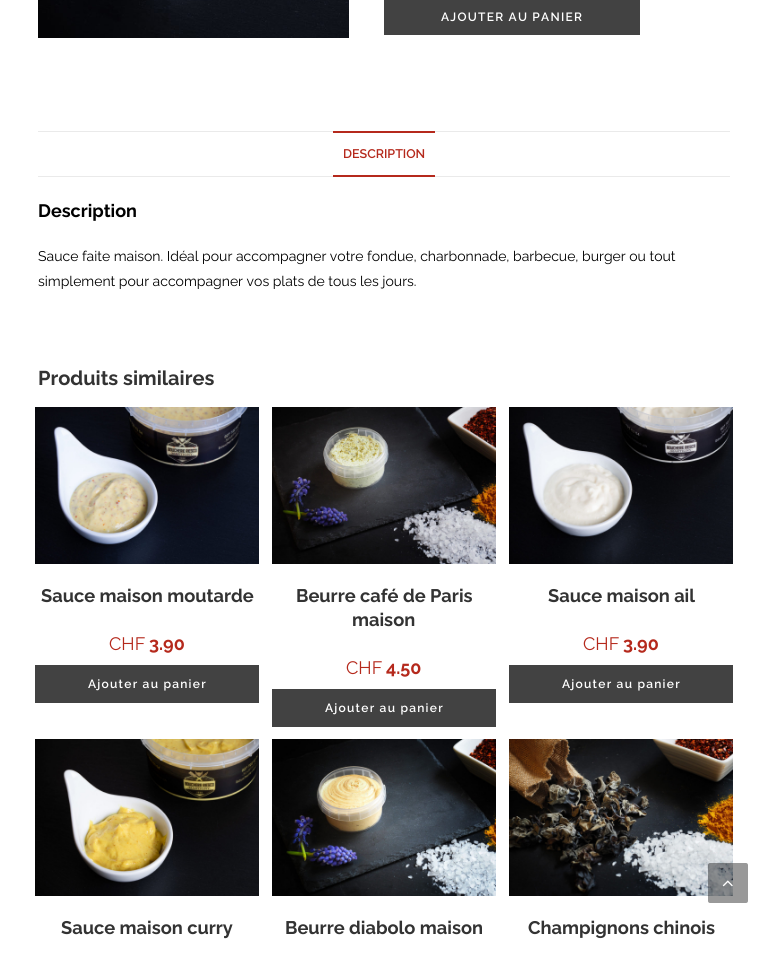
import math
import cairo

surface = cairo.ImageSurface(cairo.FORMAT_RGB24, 768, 953)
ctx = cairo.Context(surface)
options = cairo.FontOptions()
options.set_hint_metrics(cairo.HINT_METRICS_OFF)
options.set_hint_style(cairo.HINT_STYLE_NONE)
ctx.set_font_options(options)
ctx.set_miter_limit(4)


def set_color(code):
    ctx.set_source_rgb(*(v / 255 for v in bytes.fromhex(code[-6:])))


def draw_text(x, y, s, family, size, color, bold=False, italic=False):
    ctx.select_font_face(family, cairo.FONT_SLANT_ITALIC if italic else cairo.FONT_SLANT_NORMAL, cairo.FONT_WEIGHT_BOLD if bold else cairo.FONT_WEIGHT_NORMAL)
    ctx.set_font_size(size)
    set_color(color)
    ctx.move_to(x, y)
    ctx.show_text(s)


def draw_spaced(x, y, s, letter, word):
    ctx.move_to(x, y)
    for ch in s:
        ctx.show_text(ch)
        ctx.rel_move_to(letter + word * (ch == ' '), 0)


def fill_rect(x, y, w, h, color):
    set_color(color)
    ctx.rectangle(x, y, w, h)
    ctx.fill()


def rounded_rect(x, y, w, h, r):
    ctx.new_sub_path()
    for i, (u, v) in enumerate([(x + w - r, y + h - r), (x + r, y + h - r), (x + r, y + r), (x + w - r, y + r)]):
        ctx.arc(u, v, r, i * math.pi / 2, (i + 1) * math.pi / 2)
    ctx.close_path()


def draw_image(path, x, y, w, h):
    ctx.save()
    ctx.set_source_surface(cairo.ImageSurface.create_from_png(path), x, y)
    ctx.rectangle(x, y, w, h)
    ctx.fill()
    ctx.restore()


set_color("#ffffff")
ctx.paint()
draw_image("assets/img1.png", 38, 0, 311, 38)
fill_rect(384, 0, 256, 35, "#424242")
ctx.select_font_face("Raleway SemiBold")
ctx.set_font_size(12)
set_color("#ffffff")
draw_spaced(441, 21, "AJOUTER AU PANIER", 1.25, 0)
fill_rect(38, 131, 692, 1, "#eaeaea")
fill_rect(38, 176, 692, 1, "#eaeaea")
fill_rect(333, 131, 102, 2, "#b5291c")
fill_rect(333, 175, 102, 2, "#b5291c")
draw_text(343, 158, "DESCRIPTION", "Raleway SemiBold", 12.5, "#b5291c")
draw_text(38, 217, "Description", "Raleway", 18, "#000000", bold=True)
draw_text(38, 261, "Sauce faite maison. Idéal pour accompagner votre fondue, charbonnade, barbecue, burger ou tout", "Raleway", 14, "#000000")
draw_text(38, 286, "simplement pour accompagner vos plats de tous les jours.", "Raleway", 14, "#000000")
draw_text(38, 385, "Produits similaires", "Raleway", 20, "#333333", bold=True)
draw_image("assets/img2.png", 35, 407, 224, 157)
draw_text(41, 602, "Sauce maison moutarde", "Raleway", 18.25, "#333333", bold=True)
draw_text(109, 650, "CHF", "Raleway", 18, "#b5291c")
draw_text(149, 650, "3.90", "Raleway", 18, "#b5291c", bold=True)
fill_rect(35, 665, 224, 38, "#424242")
ctx.select_font_face("Raleway SemiBold")
ctx.set_font_size(12)
set_color("#ffffff")
draw_spaced(88, 688, "Ajouter au panier", 1.25, 0)
draw_image("assets/img3.png", 272, 407, 224, 157)
draw_text(296, 602, "Beurre café de Paris", "Raleway", 18.25, "#333333", bold=True)
draw_text(352, 626, "maison", "Raleway", 18.25, "#333333", bold=True)
draw_text(346, 674, "CHF", "Raleway", 18, "#b5291c")
draw_text(386, 674, "4.50", "Raleway", 18, "#b5291c", bold=True)
fill_rect(272, 689, 224, 38, "#424242")
ctx.select_font_face("Raleway SemiBold")
ctx.set_font_size(12)
set_color("#ffffff")
draw_spaced(325, 712, "Ajouter au panier", 1.25, 0)
draw_image("assets/img4.png", 509, 407, 224, 157)
draw_text(548, 602, "Sauce maison ail", "Raleway", 18.25, "#333333", bold=True)
draw_text(583, 650, "CHF", "Raleway", 18, "#b5291c")
draw_text(623, 650, "3.90", "Raleway", 18, "#b5291c", bold=True)
fill_rect(509, 665, 224, 38, "#424242")
ctx.select_font_face("Raleway SemiBold")
ctx.set_font_size(12)
set_color("#ffffff")
draw_spaced(562, 688, "Ajouter au panier", 1.25, 0)
draw_image("assets/img5.png", 35, 739, 224, 157)
draw_text(61, 934, "Sauce maison curry", "Raleway", 18.25, "#333333", bold=True)
draw_image("assets/img6.png", 272, 739, 224, 157)
draw_text(285, 934, "Beurre diabolo maison", "Raleway", 18.25, "#333333", bold=True)
draw_image("assets/img7.png", 509, 739, 224, 157)
draw_text(528, 934, "Champignons chinois", "Raleway", 18.25, "#333333", bold=True)
ctx.set_source_rgba(0, 0, 0, 0.4)
rounded_rect(708, 863, 40, 40, 2)
ctx.fill()
draw_image("assets/img8.png", 722, 880, 11, 7)
surface.write_to_png("output.png")
